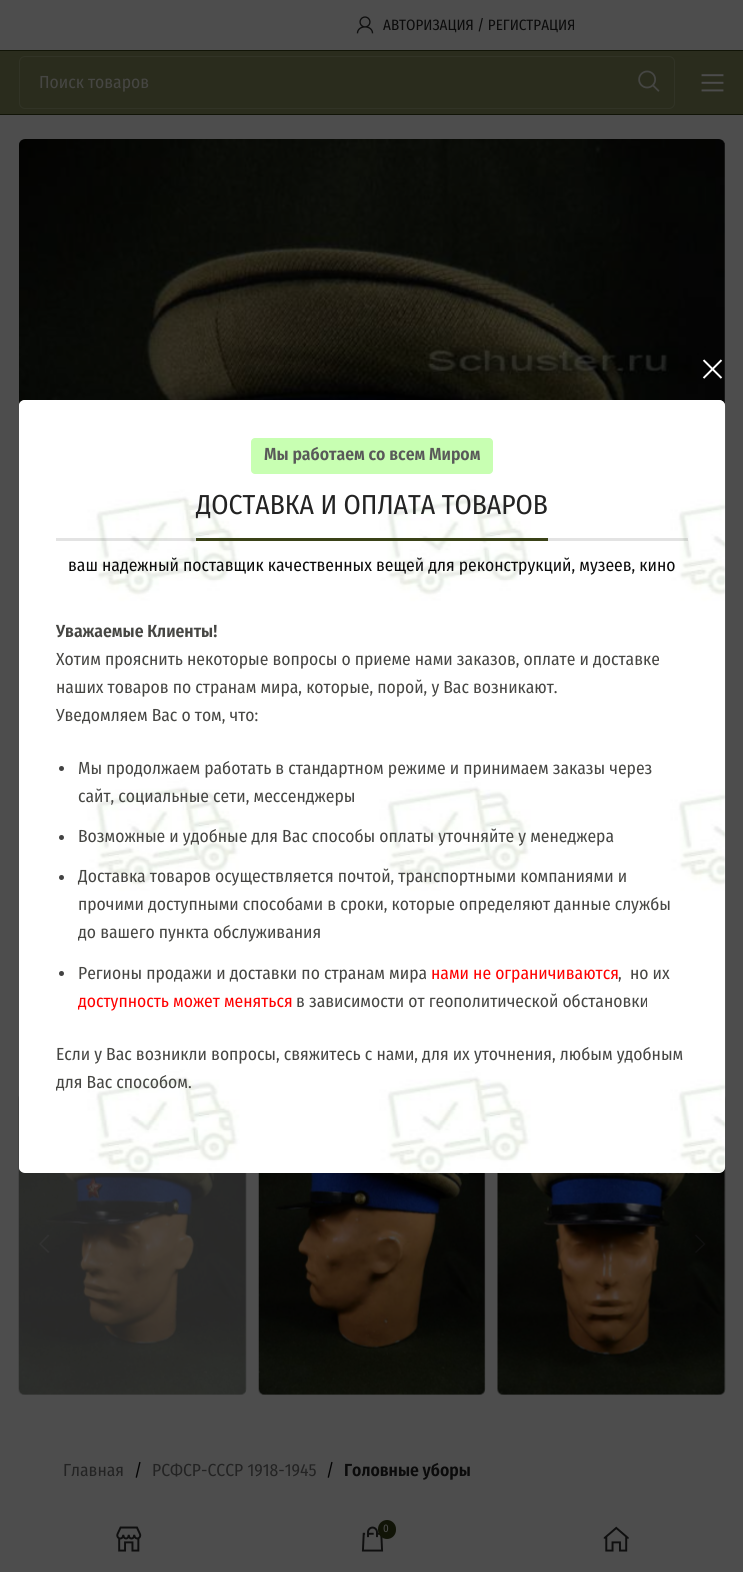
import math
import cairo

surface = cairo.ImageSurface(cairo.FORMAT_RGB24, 743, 1572)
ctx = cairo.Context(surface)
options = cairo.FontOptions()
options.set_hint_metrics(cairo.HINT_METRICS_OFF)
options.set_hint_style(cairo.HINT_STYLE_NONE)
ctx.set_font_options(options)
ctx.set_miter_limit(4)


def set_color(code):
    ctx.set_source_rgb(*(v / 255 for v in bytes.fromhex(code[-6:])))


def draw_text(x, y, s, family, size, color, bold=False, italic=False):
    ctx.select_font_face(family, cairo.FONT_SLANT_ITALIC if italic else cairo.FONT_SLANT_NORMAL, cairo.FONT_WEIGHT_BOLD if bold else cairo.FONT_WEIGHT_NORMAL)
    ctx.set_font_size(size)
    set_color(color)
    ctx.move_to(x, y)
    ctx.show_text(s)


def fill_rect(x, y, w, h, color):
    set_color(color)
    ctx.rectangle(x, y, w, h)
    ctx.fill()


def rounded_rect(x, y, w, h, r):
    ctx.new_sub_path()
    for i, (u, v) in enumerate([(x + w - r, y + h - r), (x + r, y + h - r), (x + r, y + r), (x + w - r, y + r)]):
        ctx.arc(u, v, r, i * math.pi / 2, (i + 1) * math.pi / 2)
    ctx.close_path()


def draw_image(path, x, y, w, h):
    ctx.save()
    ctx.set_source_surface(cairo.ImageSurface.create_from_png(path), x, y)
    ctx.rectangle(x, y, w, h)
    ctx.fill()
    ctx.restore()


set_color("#4d4d4d")
ctx.paint()
fill_rect(0, 50, 743, 1, "#111407")
draw_image("assets/img1.png", 356, 16, 18, 18)
draw_text(383, 30, "АВТОРИЗАЦИЯ / РЕГИСТРАЦИЯ", "Fira Sans Condensed", 15, "#0b0b0b")
fill_rect(0, 51, 743, 63, "#2a2c1d")
fill_rect(0, 114, 743, 1, "#111407")
rounded_rect(19.5, 56.5, 655, 52, 5.5)
set_color("#313326")
ctx.set_line_width(1)
ctx.stroke()
draw_text(39, 88, "Поиск товаров", "Fira Sans Condensed", 17.5, "#464643")
draw_image("assets/img2.png", 638, 70, 22, 22)
draw_image("assets/img3.png", 701, 74, 23, 18)
draw_image("assets/img4.png", 19, 139, 706, 267)
draw_image("assets/img5.png", 18, 1096, 229, 299)
draw_image("assets/img6.png", 258, 1173, 228, 222)
draw_image("assets/img7.png", 497, 1096, 229, 299)
set_color("#323232")
ctx.new_path()
ctx.move_to(49.5, 1235.5)
ctx.line_to(48, 1234.5)
ctx.line_to(39, 1244)
ctx.line_to(48, 1253)
ctx.line_to(49.5, 1252)
ctx.line_to(41, 1244)
ctx.close_path()
ctx.fill()
set_color("#0f0f0f")
ctx.new_path()
ctx.move_to(695, 1235.5)
ctx.line_to(703.5, 1244)
ctx.line_to(695, 1252)
ctx.line_to(696, 1253)
ctx.line_to(705.5, 1244)
ctx.line_to(696, 1234.5)
ctx.close_path()
ctx.fill()
draw_text(63, 1476, "Главная", "Fira Sans Condensed", 17.5, "#232323")
draw_text(134, 1476, "/", "Fira Sans Condensed", 17.5, "#030303")
draw_text(152, 1476, "РСФСР-СССР 1918-1945", "Fira Sans Condensed", 17.5, "#232323")
draw_text(326, 1476, "/", "Fira Sans Condensed", 17.5, "#030303")
draw_text(344, 1476, "Головные уборы", "Fira Sans Condensed SemiBold", 17.5, "#0b0b0b")
set_color("#ffffff")
rounded_rect(19, 400, 706, 773, 6)
ctx.fill()
draw_image("assets/img8.png", 19, 400, 707, 773)
draw_image("assets/img9.png", 702, 359, 21, 20)
set_color("#c8ffb2")
rounded_rect(251, 438, 242, 36, 4)
ctx.fill()
draw_text(264, 460, "Мы работаем со всем Миром", "Fira Sans Condensed SemiBold", 17.5, "#595959")
ctx.set_source_rgba(0, 0, 0, 0.11)
ctx.rectangle(56, 538, 632, 3)
ctx.fill()
fill_rect(196, 538, 352, 3, "#3a4218")
draw_text(196, 514, "ДОСТАВКА И ОПЛАТА ТОВАРОВ", "Fira Sans Condensed", 27.5, "#232323")
draw_text(68, 571, "ваш надежный поставщик качественных вещей для реконструкций, музеев, кино", "Fira Sans Condensed", 17.5, "#0b0b0b")
draw_text(56, 637, "Уважаемые Клиенты!", "Fira Sans Condensed SemiBold", 17.5, "#464643")
draw_text(56, 665, "Хотим прояснить некоторые вопросы о приеме нами заказов, оплате и доставке", "Fira Sans Condensed", 17.5, "#464643")
draw_text(56, 693, "наших товаров по странам мира, которые, порой, у Вас возникают.", "Fira Sans Condensed", 17.5, "#464643")
draw_text(56, 721, "Уведомляем Вас о том, что:", "Fira Sans Condensed", 17.5, "#464643")
set_color("#424242")
ctx.new_path()
ctx.arc(61.5, 768.5, 2.5, 0, 2 * math.pi)
ctx.fill()
draw_text(78, 774, "Мы продолжаем работать в стандартном режиме и принимаем заказы через", "Fira Sans Condensed", 17.5, "#464643")
draw_text(78, 802, "сайт, социальные сети, мессенджеры", "Fira Sans Condensed", 17.5, "#464643")
set_color("#424242")
ctx.new_path()
ctx.arc(61.5, 837.5, 2.5, 0, 2 * math.pi)
ctx.fill()
draw_text(78, 842, "Возможные и удобные для Вас способы оплаты уточняйте у менеджера", "Fira Sans Condensed", 17.5, "#464643")
set_color("#424242")
ctx.new_path()
ctx.arc(61.5, 877.5, 2.5, 0, 2 * math.pi)
ctx.fill()
draw_text(78, 882, "Доставка товаров осуществляется почтой, транспортными компаниями и", "Fira Sans Condensed", 17.5, "#464643")
draw_text(78, 910, "прочими доступными способами в сроки, которые определяют данные службы", "Fira Sans Condensed", 17.5, "#464643")
draw_text(78, 938, "до вашего пункта обслуживания", "Fira Sans Condensed", 17.5, "#464643")
set_color("#424242")
ctx.new_path()
ctx.arc(61.5, 973.5, 2.5, 0, 2 * math.pi)
ctx.fill()
draw_text(78, 979, "Регионы продажи и доставки по странам мира", "Fira Sans Condensed", 17.5, "#464643")
draw_text(431, 979, "нами не ограничиваются", "Fira Sans Condensed", 17.5, "#ff0000")
draw_text(618, 979, ",  но их", "Fira Sans Condensed", 17.5, "#464643")
draw_text(78, 1007, "доступность может меняться", "Fira Sans Condensed", 17.5, "#ff0000")
draw_text(296, 1007, "в зависимости от геополитической обстановки", "Fira Sans Condensed", 17.5, "#464643")
draw_text(56, 1060, "Если у Вас возникли вопросы, свяжитесь с нами, для их уточнения, любым удобным", "Fira Sans Condensed", 17.5, "#464643")
draw_text(56, 1088, "для Вас способом.", "Fira Sans Condensed", 17.5, "#464643")
draw_image("assets/img10.png", 116, 1526, 26, 26)
draw_image("assets/img11.png", 361, 1526, 23, 26)
set_color("#111407")
rounded_rect(378, 1520, 18, 19, 9)
ctx.fill()
draw_text(383, 1532, "0", "Fira Sans Condensed", 11, "#4d4d4d")
draw_image("assets/img12.png", 603, 1526, 26, 26)
surface.write_to_png("output.png")
